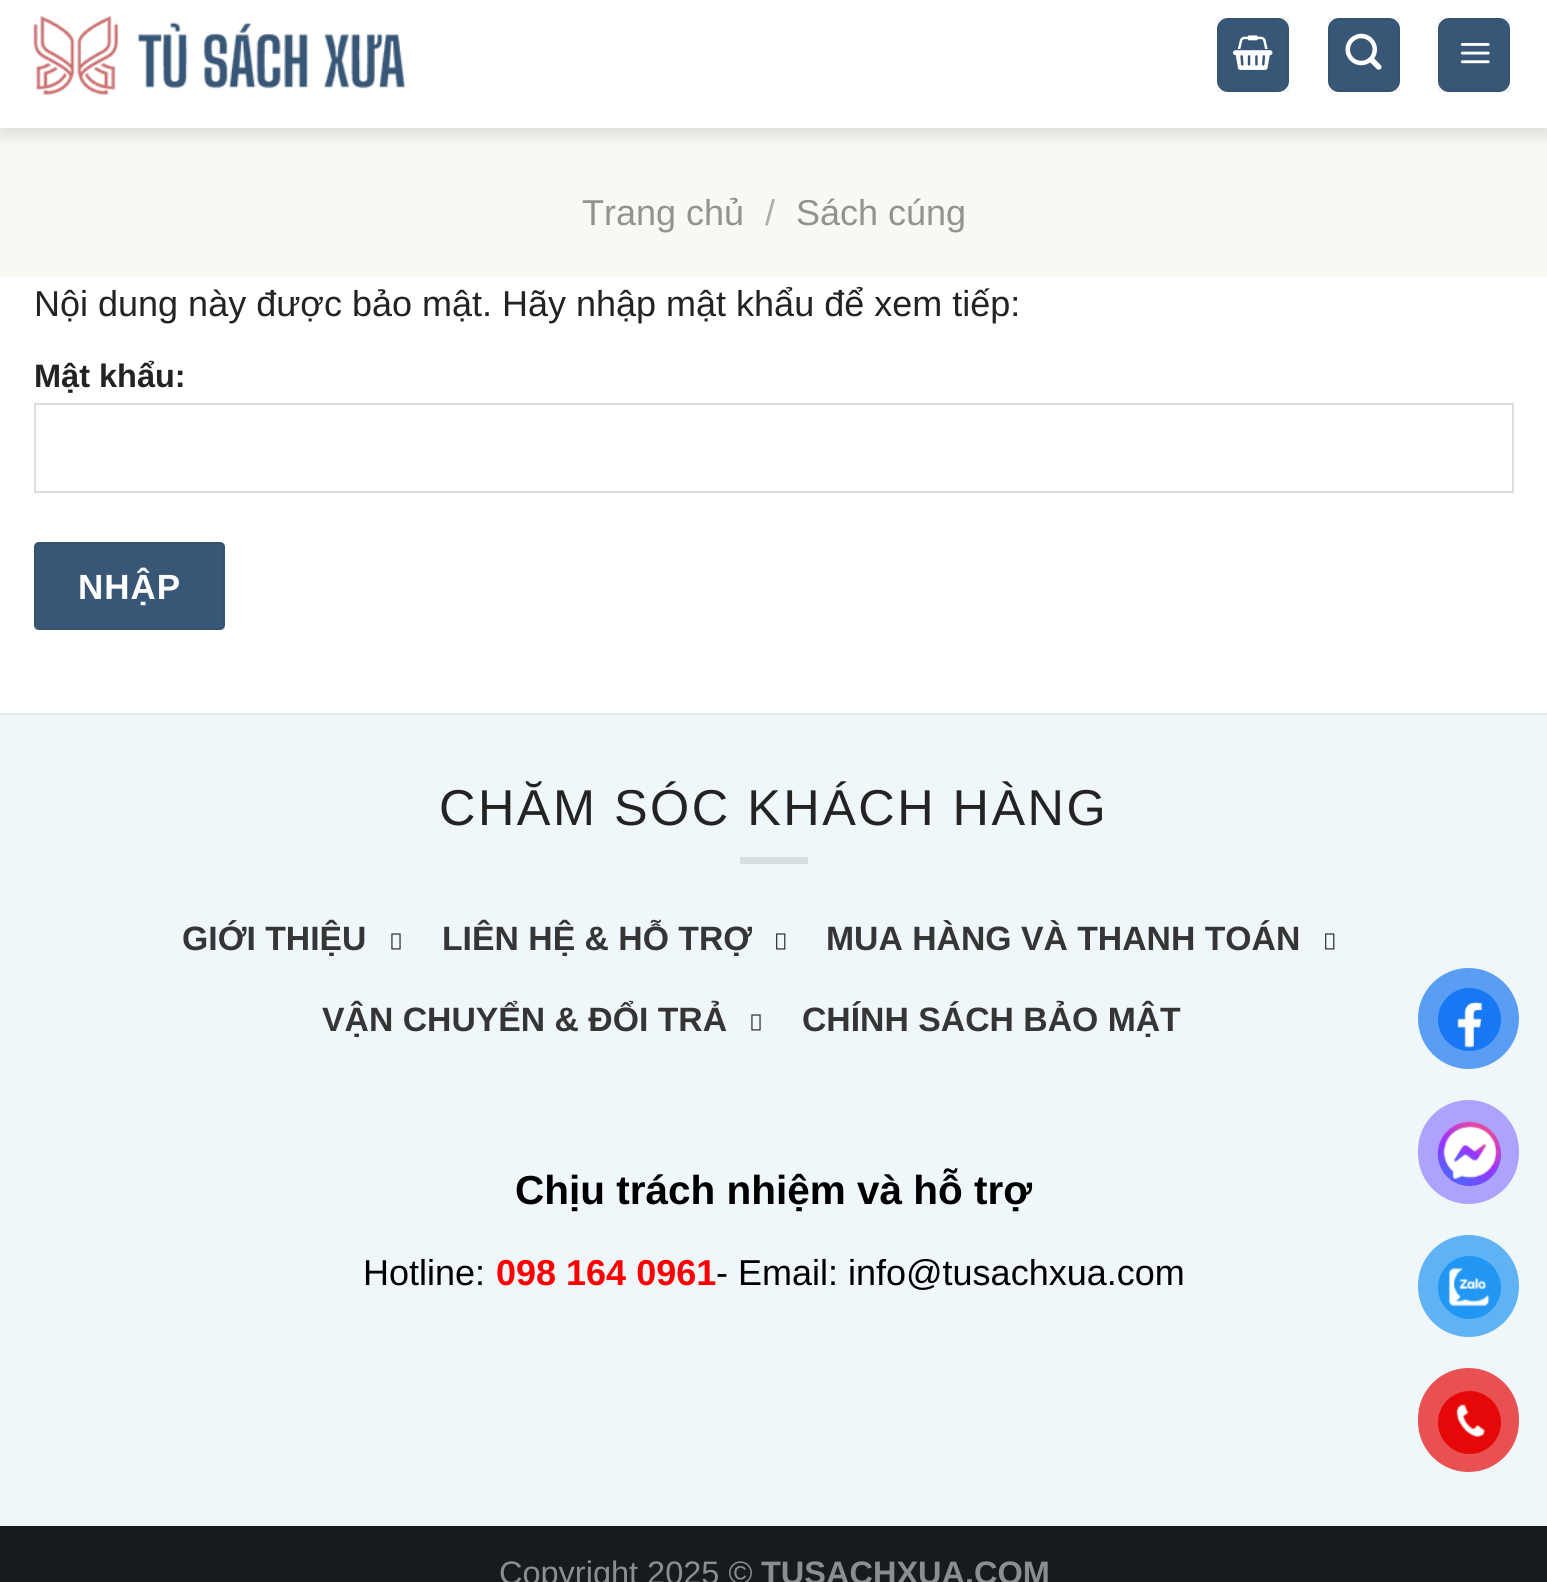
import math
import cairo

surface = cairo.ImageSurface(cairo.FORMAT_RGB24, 1547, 1582)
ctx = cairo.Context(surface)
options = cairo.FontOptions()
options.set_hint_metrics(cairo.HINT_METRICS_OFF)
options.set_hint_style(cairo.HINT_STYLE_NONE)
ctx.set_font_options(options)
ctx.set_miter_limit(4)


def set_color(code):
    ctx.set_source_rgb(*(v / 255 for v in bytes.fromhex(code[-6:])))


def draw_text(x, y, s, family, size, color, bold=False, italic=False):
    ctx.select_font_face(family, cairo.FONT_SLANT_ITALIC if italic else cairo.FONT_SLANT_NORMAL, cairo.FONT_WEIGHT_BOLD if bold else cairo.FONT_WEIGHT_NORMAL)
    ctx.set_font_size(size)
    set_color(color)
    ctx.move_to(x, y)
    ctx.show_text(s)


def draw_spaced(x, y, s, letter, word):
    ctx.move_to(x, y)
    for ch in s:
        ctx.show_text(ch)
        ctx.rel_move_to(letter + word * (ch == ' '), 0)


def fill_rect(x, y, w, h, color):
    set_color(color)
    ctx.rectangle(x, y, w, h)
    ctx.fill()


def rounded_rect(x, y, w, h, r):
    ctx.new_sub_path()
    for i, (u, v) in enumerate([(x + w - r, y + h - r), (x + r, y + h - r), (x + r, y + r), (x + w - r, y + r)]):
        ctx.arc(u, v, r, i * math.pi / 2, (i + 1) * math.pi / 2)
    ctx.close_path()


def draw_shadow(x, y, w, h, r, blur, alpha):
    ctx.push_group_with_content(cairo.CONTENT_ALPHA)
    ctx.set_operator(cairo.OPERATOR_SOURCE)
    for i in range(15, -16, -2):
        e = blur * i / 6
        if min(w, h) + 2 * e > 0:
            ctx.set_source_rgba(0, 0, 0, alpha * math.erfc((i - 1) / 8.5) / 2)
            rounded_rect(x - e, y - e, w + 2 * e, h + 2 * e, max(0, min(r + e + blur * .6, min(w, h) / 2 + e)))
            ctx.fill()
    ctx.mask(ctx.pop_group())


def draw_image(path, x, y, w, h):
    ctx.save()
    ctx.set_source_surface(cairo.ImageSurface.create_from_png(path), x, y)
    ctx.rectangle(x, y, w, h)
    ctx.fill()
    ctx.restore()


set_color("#ffffff")
ctx.paint()
fill_rect(0, 128, 1547, 149, "#faf8f2")
ctx.save()
ctx.rectangle(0, 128, 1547, 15)
ctx.clip()
set_color("#000000")
draw_shadow(2, -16, 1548, 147, 0, 11, 0.15)
ctx.restore()
draw_image("assets/img1.png", 33, 15, 372, 80)
set_color("#385777")
rounded_rect(1217, 18, 72, 74, 11)
ctx.fill()
ctx.rectangle(1218, 19, 70, 72)
ctx.set_source_rgba(0, 0, 0, 0.05)
ctx.stroke()
draw_image("assets/img2.png", 1233, 35, 40, 35)
set_color("#385777")
rounded_rect(1328, 18, 72, 74, 11)
ctx.fill()
ctx.rectangle(1329, 19, 70, 72)
ctx.set_source_rgba(0, 0, 0, 0.05)
ctx.stroke()
draw_image("assets/img3.png", 1345, 33, 37, 37)
set_color("#385777")
rounded_rect(1438, 18, 72, 74, 11)
ctx.fill()
ctx.rectangle(1439, 19, 70, 72)
ctx.set_source_rgba(0, 0, 0, 0.05)
ctx.stroke()
draw_image("assets/img4.png", 1460, 43, 30, 21)
draw_text(582, 225, "Trang chủ", "Liberation Sans", 36, "#929290")
draw_text(765, 225, "/", "Liberation Sans", 36, "#aeada9")
draw_text(796, 225, "Sách cúng", "Liberation Sans", 36, "#929290")
draw_text(34, 316, "Nội dung này được bảo mật. Hãy nhập mật khẩu để xem tiếp:", "Liberation Sans", 36, "#232323")
draw_text(34, 387, "Mật khẩu:", "Liberation Sans", 32.5, "#232323", bold=True)
ctx.rectangle(35, 404, 1478, 88)
set_color("#dddddd")
ctx.stroke()
set_color("#385777")
rounded_rect(34, 542, 191, 88, 5)
ctx.fill()
ctx.rectangle(35, 543, 189, 86)
ctx.set_source_rgba(0, 0, 0, 0.05)
ctx.stroke()
ctx.set_font_size(35)
set_color("#ffffff")
draw_spaced(78, 599, "NHẬP", 1, 0)
fill_rect(0, 715, 1547, 811, "#eff7fa")
fill_rect(0, 713, 1547, 2, "#e3ebee")
ctx.select_font_face("Liberation Sans")
ctx.set_font_size(50.4)
set_color("#232323")
draw_spaced(439, 825, "CHĂM SÓC KHÁCH HÀNG", 2.5, 0)
fill_rect(740, 857, 68, 7, "#d7dee1")
draw_text(182, 950, "GIỚI THIỆU", "Liberation Sans", 33.75, "#353535", bold=True)
draw_image("assets/img5.png", 391, 933, 10, 17)
draw_text(442, 950, "LIÊN HỆ & HỖ TRỢ", "Liberation Sans", 33.75, "#353535", bold=True)
draw_image("assets/img6.png", 776, 933, 10, 17)
draw_text(826, 950, "MUA HÀNG VÀ THANH TOÁN", "Liberation Sans", 33.75, "#353535", bold=True)
draw_image("assets/img6.png", 1325, 933, 10, 17)
draw_text(322, 1031, "VẬN CHUYỂN & ĐỔI TRẢ", "Liberation Sans", 33.75, "#353535", bold=True)
draw_image("assets/img5.png", 751, 1014, 10, 17)
draw_text(802, 1031, "CHÍNH SÁCH BẢO MẬT", "Liberation Sans", 33.75, "#353535", bold=True)
draw_text(515, 1204, "Chịu trách nhiệm và hỗ trợ", "Liberation Sans", 40.5, "#000000", bold=True)
draw_text(363, 1285, "Hotline:", "Liberation Sans", 36, "#000000")
draw_text(496, 1285, "098 164 0961", "Liberation Sans", 36, "#ff0000", bold=True)
draw_text(716, 1285, "- Email: info@tusachxua.com", "Liberation Sans", 36, "#000000")
fill_rect(0, 1526, 1547, 56, "#171b20")
draw_text(499, 1584, "Copyright 2025 ©", "Liberation Sans", 32.5, "#8b8d90")
draw_text(761, 1584, "TUSACHXUA.COM", "Liberation Sans", 32.5, "#8b8d90", bold=True)
set_color("#599df4")
ctx.new_path()
ctx.arc(1468.5, 1018.5, 50.5, 0, 2 * math.pi)
ctx.fill()
set_color("#1877f2")
ctx.arc(1469.5, 1019.5, 31.5, 0, 2 * math.pi)
ctx.fill()
draw_image("assets/img7.png", 1457, 1002, 26, 46)
set_color("#ada3fc")
rounded_rect(1418, 1100, 101, 104, 50.5)
ctx.fill()
set_color("#6a4ffe")
ctx.arc(1469.5, 1154.5, 31.5, 0, 2 * math.pi)
ctx.fill()
draw_image("assets/img8.png", 1437, 1121, 64, 64)
set_color("#5fb3f5")
rounded_rect(1418, 1235, 101, 102, 50.5)
ctx.fill()
set_color("#2196f3")
ctx.arc(1469.5, 1287.5, 31.5, 0, 2 * math.pi)
ctx.fill()
draw_image("assets/img9.png", 1448, 1267, 42, 40)
set_color("#e95051")
rounded_rect(1418, 1368, 101, 104, 50.5)
ctx.fill()
set_color("#e60808")
ctx.arc(1469.5, 1422.5, 31.5, 0, 2 * math.pi)
ctx.fill()
draw_image("assets/img10.png", 1456, 1404, 29, 34)
surface.write_to_png("output.png")
